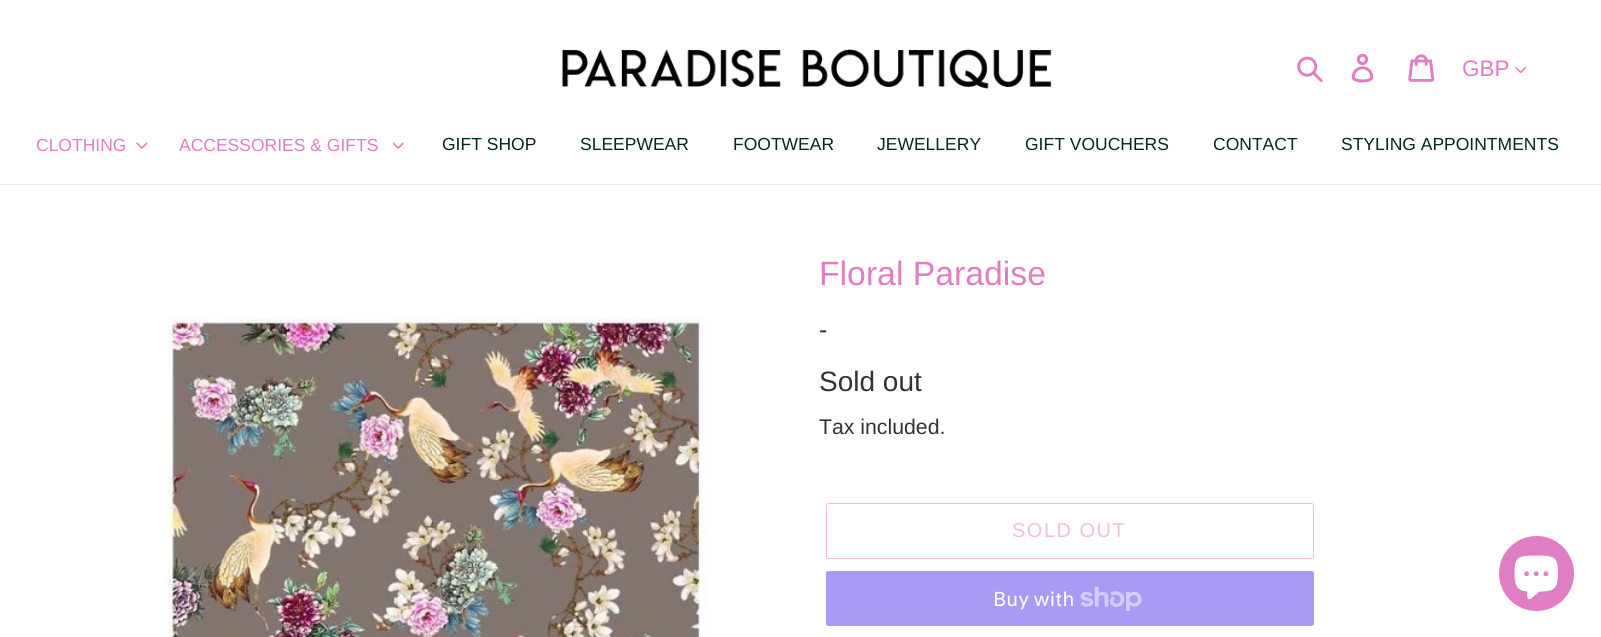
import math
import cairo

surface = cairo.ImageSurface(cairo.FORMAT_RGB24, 1601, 637)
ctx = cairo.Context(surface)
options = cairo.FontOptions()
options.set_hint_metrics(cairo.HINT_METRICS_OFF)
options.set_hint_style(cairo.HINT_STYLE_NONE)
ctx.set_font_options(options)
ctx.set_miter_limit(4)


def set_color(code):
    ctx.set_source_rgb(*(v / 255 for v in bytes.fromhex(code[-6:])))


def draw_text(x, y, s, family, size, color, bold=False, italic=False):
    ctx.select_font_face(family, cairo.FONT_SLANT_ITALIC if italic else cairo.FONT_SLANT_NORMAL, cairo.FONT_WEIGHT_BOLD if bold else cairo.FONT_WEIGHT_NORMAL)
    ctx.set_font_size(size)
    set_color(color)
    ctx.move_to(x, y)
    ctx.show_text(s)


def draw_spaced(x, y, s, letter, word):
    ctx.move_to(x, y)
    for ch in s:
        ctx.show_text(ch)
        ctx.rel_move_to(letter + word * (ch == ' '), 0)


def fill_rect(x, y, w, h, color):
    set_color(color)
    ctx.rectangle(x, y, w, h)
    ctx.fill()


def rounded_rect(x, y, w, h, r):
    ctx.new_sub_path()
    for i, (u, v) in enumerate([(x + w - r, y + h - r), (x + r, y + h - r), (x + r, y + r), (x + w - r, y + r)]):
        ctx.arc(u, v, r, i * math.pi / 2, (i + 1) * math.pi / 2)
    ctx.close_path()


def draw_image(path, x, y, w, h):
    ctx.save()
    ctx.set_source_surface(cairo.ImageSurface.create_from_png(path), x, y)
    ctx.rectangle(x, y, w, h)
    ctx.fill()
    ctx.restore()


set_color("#ffffff")
ctx.paint()
draw_image("assets/img1.png", 561, 49, 491, 40)
draw_image("assets/img2.png", 1297, 56, 26, 27)
draw_image("assets/img3.png", 1351, 54, 23, 29)
draw_image("assets/img4.png", 1408, 54, 27, 28)
draw_text(1462, 76, "GBP", "Liberation Sans", 22.5, "#e17dc4")
draw_image("assets/img5.png", 1515, 66, 11, 8)
fill_rect(0, 184, 1601, 1, "#e8e9eb")
draw_text(36, 151, "CLOTHING", "Liberation Sans", 17.5, "#e17dc4")
draw_image("assets/img6.png", 136, 142, 12, 7)
draw_text(179, 151, "ACCESSORIES & GIFTS", "Liberation Sans", 17.5, "#e17dc4")
draw_image("assets/img7.png", 393, 142, 11, 7)
draw_text(442, 150, "GIFT SHOP", "Liberation Sans", 17.5, "#022a17")
draw_text(580, 150, "SLEEPWEAR", "Liberation Sans", 17.5, "#022a17")
draw_text(733, 150, "FOOTWEAR", "Liberation Sans", 17.5, "#022a17")
draw_text(877, 150, "JEWELLERY", "Liberation Sans", 17.5, "#022a17")
draw_text(1025, 150, "GIFT VOUCHERS", "Liberation Sans", 17.5, "#022a17")
draw_text(1213, 150, "CONTACT", "Liberation Sans", 17.5, "#022a17")
draw_text(1341, 150, "STYLING APPOINTMENTS", "Liberation Sans", 17.5, "#022a17")
draw_image("assets/img8.png", 161, 316, 550, 321)
draw_text(819, 285, "Floral Paradise", "Liberation Sans", 33.75, "#e17dc4")
ctx.set_font_size(25)
set_color("#333333")
draw_spaced(819, 338, "-", 1, 0)
draw_text(819, 391, "Sold out", "Liberation Sans", 28, "#333333")
draw_text(819, 434, "Tax included.", "Liberation Sans", 21.25, "#333333")
rounded_rect(826.5, 503.5, 487, 55, 2)
set_color("#f0bee2")
ctx.set_line_width(1)
ctx.stroke()
ctx.set_font_size(20)
draw_spaced(1012, 537, "SOLD OUT", 1.5, 0)
set_color("#aa99f5")
rounded_rect(826, 571, 488, 55, 2.5)
ctx.fill()
draw_text(993, 606, "Buy with", "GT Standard", 20, "#ffffff")
draw_image("assets/img9.png", 1080, 586, 62, 25)
set_color("#e17dc4")
ctx.arc(1536.5, 573.5, 37.5, 0, 2 * math.pi)
ctx.fill()
draw_image("assets/img10.png", 1514, 555, 44, 45)
surface.write_to_png("output.png")
